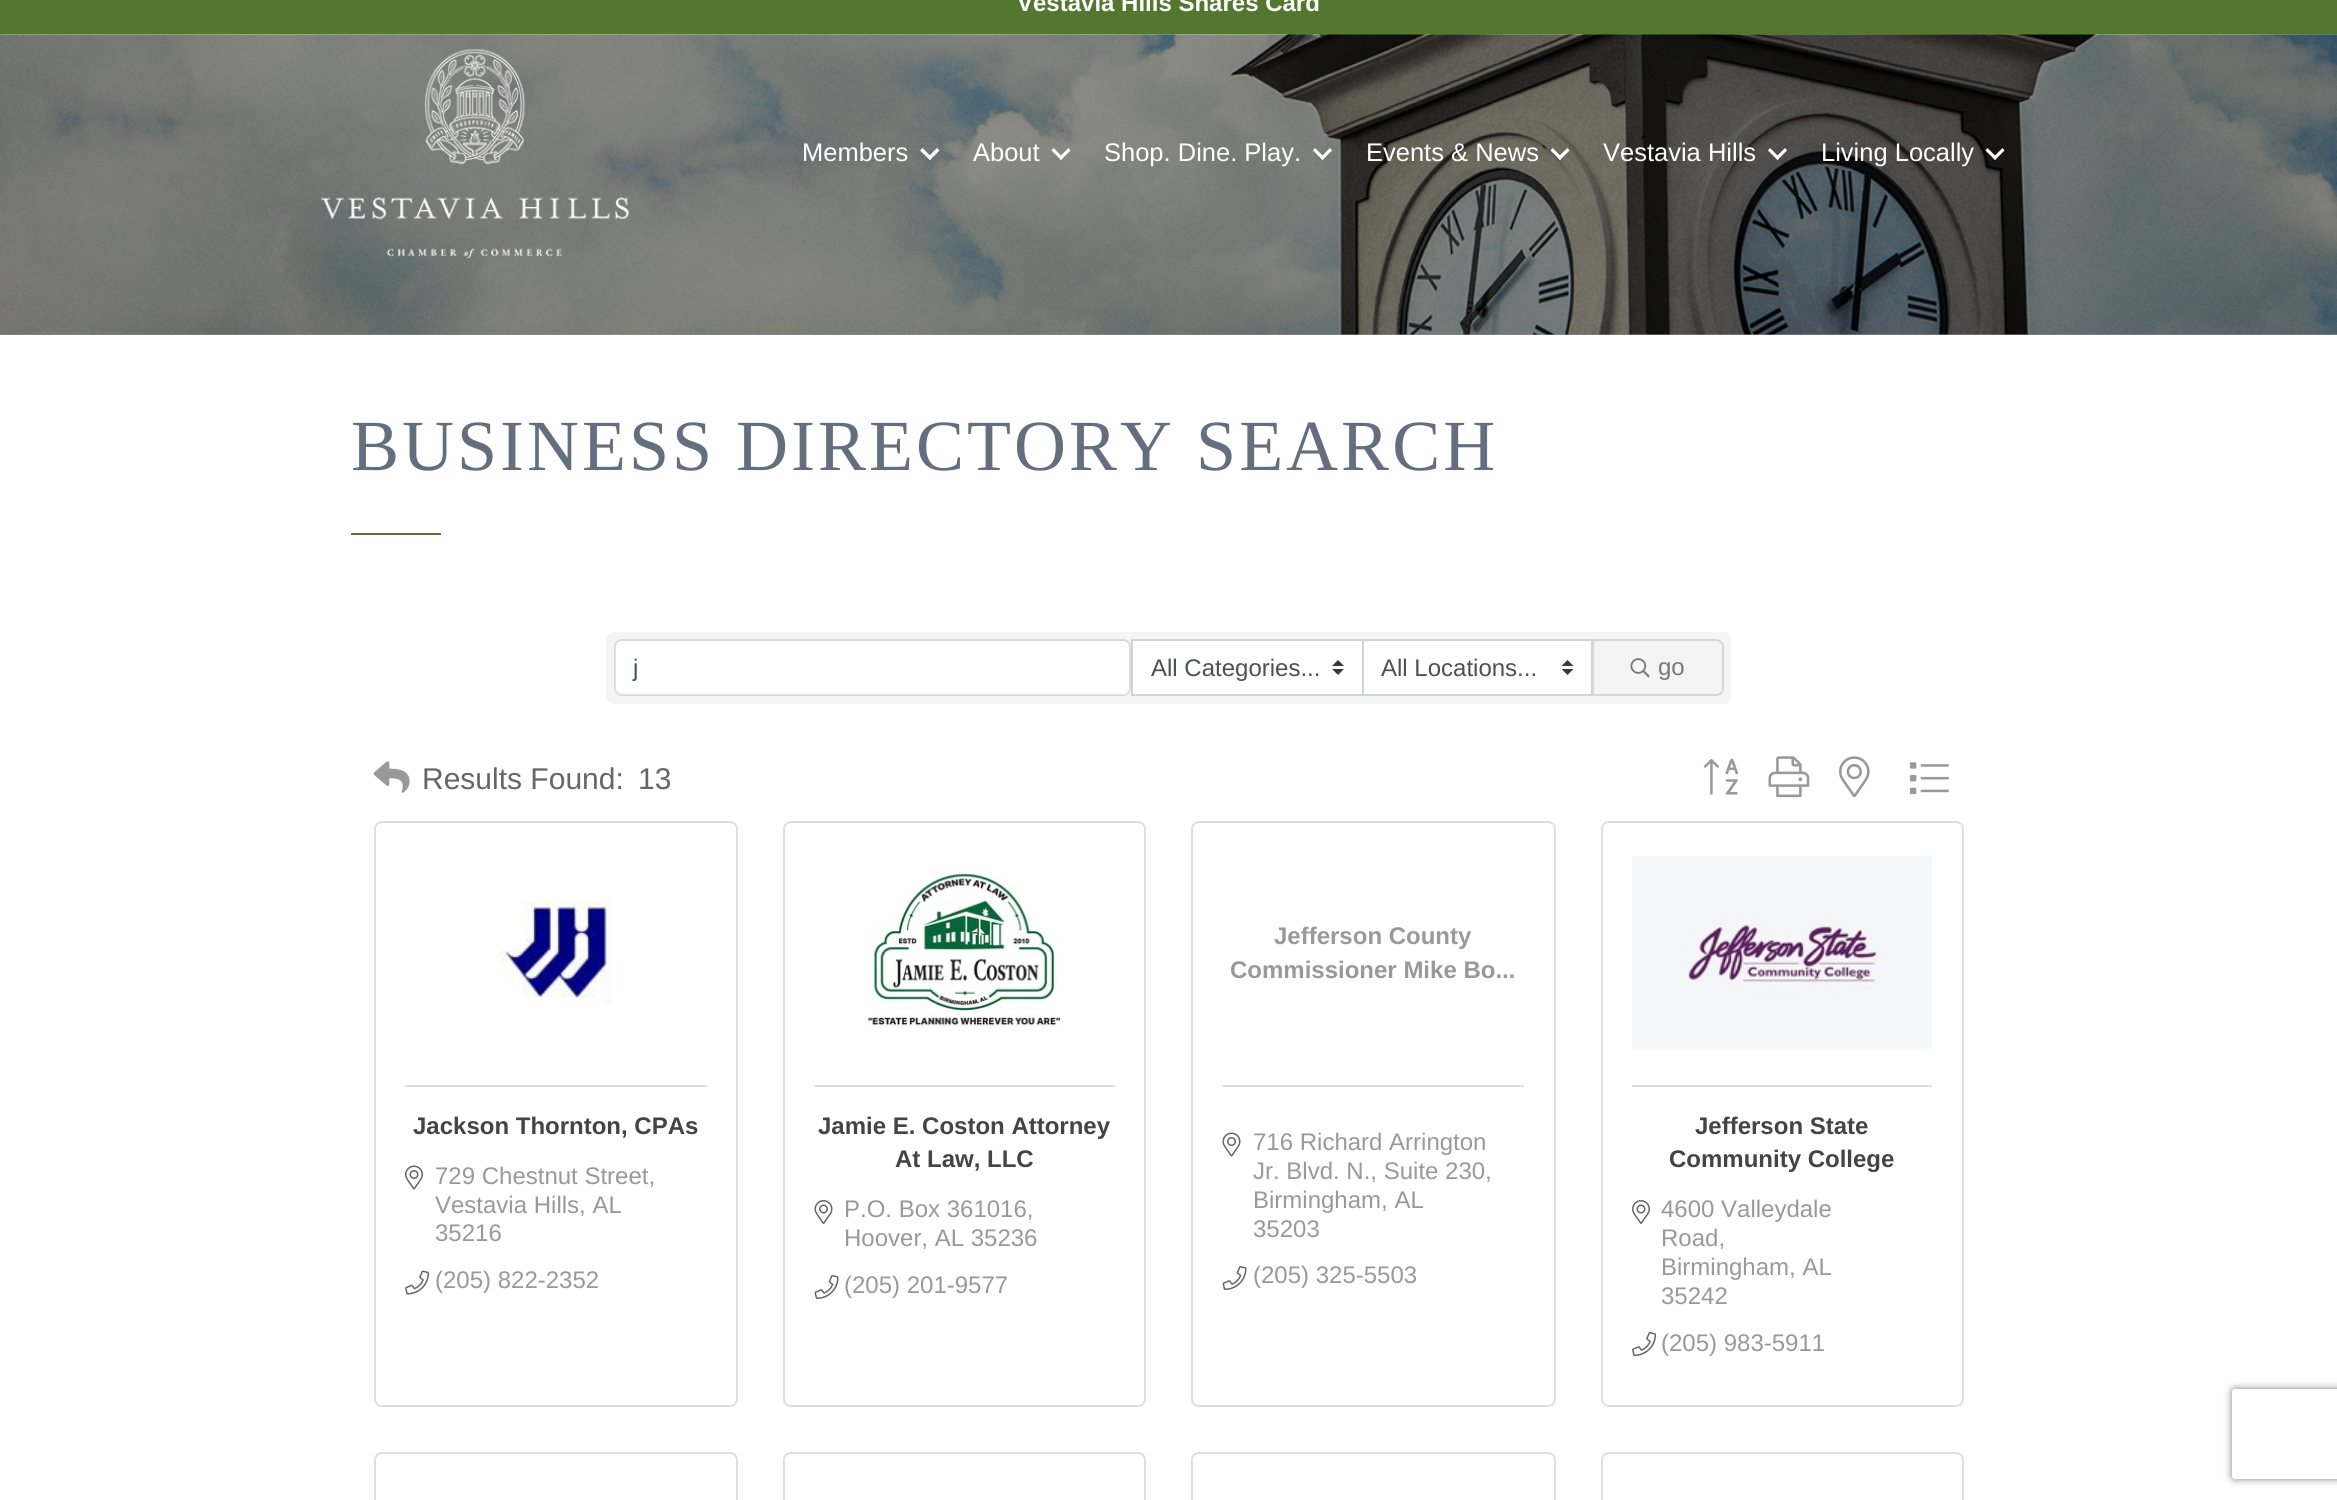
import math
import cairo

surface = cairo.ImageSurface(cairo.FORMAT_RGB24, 2337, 1500)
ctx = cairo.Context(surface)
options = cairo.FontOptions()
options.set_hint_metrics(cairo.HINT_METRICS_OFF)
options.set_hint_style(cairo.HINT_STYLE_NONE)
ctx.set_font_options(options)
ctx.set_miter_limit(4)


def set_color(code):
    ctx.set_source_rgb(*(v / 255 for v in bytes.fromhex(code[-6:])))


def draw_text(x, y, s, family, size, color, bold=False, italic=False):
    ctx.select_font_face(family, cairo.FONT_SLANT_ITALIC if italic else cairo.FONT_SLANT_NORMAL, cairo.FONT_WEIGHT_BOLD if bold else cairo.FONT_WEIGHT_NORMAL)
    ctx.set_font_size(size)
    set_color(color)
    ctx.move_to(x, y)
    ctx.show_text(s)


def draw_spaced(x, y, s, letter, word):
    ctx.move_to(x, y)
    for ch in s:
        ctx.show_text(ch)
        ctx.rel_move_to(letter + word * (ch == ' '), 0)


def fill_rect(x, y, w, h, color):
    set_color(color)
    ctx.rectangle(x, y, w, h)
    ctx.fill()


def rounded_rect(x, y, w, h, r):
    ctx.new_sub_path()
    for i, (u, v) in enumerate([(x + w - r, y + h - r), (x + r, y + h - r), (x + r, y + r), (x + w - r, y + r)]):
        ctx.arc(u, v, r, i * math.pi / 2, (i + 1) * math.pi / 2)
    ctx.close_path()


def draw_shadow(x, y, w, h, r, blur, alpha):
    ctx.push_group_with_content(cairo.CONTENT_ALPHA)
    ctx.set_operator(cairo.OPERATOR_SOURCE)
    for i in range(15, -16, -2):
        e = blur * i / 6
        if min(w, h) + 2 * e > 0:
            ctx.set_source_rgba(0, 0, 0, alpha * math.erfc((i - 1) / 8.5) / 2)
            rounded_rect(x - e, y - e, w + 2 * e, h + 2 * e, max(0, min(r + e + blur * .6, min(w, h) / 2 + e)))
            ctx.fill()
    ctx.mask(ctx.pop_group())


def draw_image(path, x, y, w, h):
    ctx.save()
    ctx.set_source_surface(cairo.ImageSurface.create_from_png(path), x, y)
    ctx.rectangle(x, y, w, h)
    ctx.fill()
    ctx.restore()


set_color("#547730")
ctx.paint()
draw_text(1017, 11, "Vestavia Hills Shares Card", "Liberation Sans", 24, "#ffffff", bold=True)
fill_rect(0, 334, 2337, 1, "#969696")
draw_image("assets/img2.png", 0, 34, 2337, 301)
draw_image("assets/img1.png", 321, 49, 308, 209)
draw_text(802, 161, "Members", "Liberation Sans", 25.5, "#ffffff")
ctx.new_path()
ctx.move_to(937, 148)
ctx.line_to(939.5, 150.5)
ctx.line_to(930, 160)
ctx.line_to(927.5, 157.5)
ctx.close_path()
ctx.fill()
ctx.new_path()
ctx.move_to(922.5, 148)
ctx.line_to(932, 157.5)
ctx.line_to(930, 160)
ctx.line_to(920, 150.5)
ctx.close_path()
ctx.fill()
draw_text(973, 161, "About", "Liberation Sans", 25.5, "#ffffff")
ctx.new_path()
ctx.move_to(1068.5, 148)
ctx.line_to(1070.5, 150.5)
ctx.line_to(1061, 160)
ctx.line_to(1059, 157.5)
ctx.close_path()
ctx.fill()
ctx.new_path()
ctx.move_to(1053.5, 148)
ctx.line_to(1063, 157.5)
ctx.line_to(1061, 160)
ctx.line_to(1051.5, 150.5)
ctx.close_path()
ctx.fill()
draw_text(1104, 161, "Shop. Dine. Play.", "Liberation Sans", 25.5, "#ffffff")
ctx.new_path()
ctx.move_to(1330, 148)
ctx.line_to(1332, 150.5)
ctx.line_to(1322.5, 160)
ctx.line_to(1320.5, 157.5)
ctx.close_path()
ctx.fill()
ctx.new_path()
ctx.move_to(1315, 148)
ctx.line_to(1324.5, 157.5)
ctx.line_to(1322.5, 160)
ctx.line_to(1313, 150.5)
ctx.close_path()
ctx.fill()
draw_text(1366, 161, "Events & News", "Liberation Sans", 25.5, "#ffffff")
ctx.new_path()
ctx.move_to(1567.5, 148)
ctx.line_to(1569.5, 150.5)
ctx.line_to(1560, 160)
ctx.line_to(1557.5, 157.5)
ctx.close_path()
ctx.fill()
ctx.new_path()
ctx.move_to(1552.5, 148)
ctx.line_to(1562, 157.5)
ctx.line_to(1560, 160)
ctx.line_to(1550.5, 150.5)
ctx.close_path()
ctx.fill()
draw_text(1603, 161, "Vestavia Hills", "Liberation Sans", 25.5, "#ffffff")
ctx.new_path()
ctx.move_to(1785, 148)
ctx.line_to(1787, 150.5)
ctx.line_to(1777.5, 160)
ctx.line_to(1775.5, 157.5)
ctx.close_path()
ctx.fill()
ctx.new_path()
ctx.move_to(1770, 148)
ctx.line_to(1779.5, 157.5)
ctx.line_to(1777.5, 160)
ctx.line_to(1768, 150.5)
ctx.close_path()
ctx.fill()
draw_text(1821, 161, "Living Locally", "Liberation Sans", 25.5, "#ffffff")
ctx.new_path()
ctx.move_to(2002.5, 148)
ctx.line_to(2004.5, 150.5)
ctx.line_to(1995, 160)
ctx.line_to(1993, 157.5)
ctx.close_path()
ctx.fill()
ctx.new_path()
ctx.move_to(1987.5, 148)
ctx.line_to(1997, 157.5)
ctx.line_to(1995, 160)
ctx.line_to(1985.5, 150.5)
ctx.close_path()
ctx.fill()
fill_rect(0, 335, 2337, 1165, "#ffffff")
ctx.select_font_face("Liberation Serif")
ctx.set_font_size(72)
set_color("#636e7f")
draw_spaced(351, 470, "BUSINESS DIRECTORY SEARCH", 3, 0)
fill_rect(351, 533, 90, 2, "#547730")
set_color("#f5f5f5")
rounded_rect(606, 632, 1125, 72, 8)
ctx.fill()
set_color("#ffffff")
rounded_rect(615, 641, 515, 54, 6)
ctx.fill()
rounded_rect(615, 640, 515, 55, 7)
ctx.set_source_rgba(0, 0, 0, 0.12)
ctx.stroke()
draw_text(633, 676, "j", "Liberation Sans", 24, "#495057")
fill_rect(1133, 641, 229, 53, "#ffffff")
draw_image("assets/img3.png", 1332, 660, 12, 15)
ctx.rectangle(1132, 640, 231, 55)
set_color("#ced4da")
ctx.stroke()
draw_text(1151, 676, "All Categories...", "Liberation Sans", 24, "#495057")
fill_rect(1364, 641, 227, 53, "#ffffff")
draw_image("assets/img4.png", 1562, 660, 12, 15)
ctx.rectangle(1363, 640, 229, 55)
set_color("#ced4da")
ctx.stroke()
draw_text(1381, 676, "All Locations...", "Liberation Sans", 24, "#495057")
set_color("#f4f4f4")
ctx.new_path()
ctx.move_to(1593, 640)
ctx.line_to(1716, 640)
ctx.curve_to(1720, 640, 1723, 643, 1723, 647)
ctx.line_to(1723, 688)
ctx.curve_to(1723, 692, 1720, 695, 1716, 695)
ctx.line_to(1593, 695)
ctx.close_path()
ctx.fill_preserve()
set_color("#d6d6d6")
ctx.stroke()
draw_image("assets/img5.png", 1630, 658, 20, 20)
draw_text(1658, 675, "go", "Liberation Sans", 24, "#777777")
draw_image("assets/img6.png", 373, 761, 37, 32)
draw_text(422, 789, "Results Found:", "Liberation Sans", 30, "#666666")
draw_text(638, 789, "13", "Liberation Sans", 30, "#666666")
draw_image("assets/img7.png", 1703, 758, 36, 37)
draw_image("assets/img8.png", 1768, 756, 42, 42)
draw_image("assets/img9.png", 1839, 756, 31, 42)
draw_image("assets/img10.png", 1909, 762, 40, 33)
rounded_rect(375, 822, 362, 584, 7)
set_color("#dfdfdf")
ctx.stroke()
draw_image("assets/img11.png", 499, 901, 113, 103)
fill_rect(405, 1085, 302, 2, "#dfdfdf")
draw_text(413, 1134, "Jackson Thornton, CPAs", "Liberation Sans", 24, "#444444", bold=True)
draw_image("assets/img12.png", 405, 1165, 18, 25)
draw_text(435, 1184, "729 Chestnut Street,", "Liberation Sans", 24, "#999999")
draw_text(435, 1213, "Vestavia Hills, AL", "Liberation Sans", 24, "#999999")
draw_text(435, 1241, "35216", "Liberation Sans", 24, "#999999")
draw_image("assets/img13.png", 405, 1270, 24, 25)
draw_text(435, 1288, "(205) 822-2352", "Liberation Sans", 24, "#999999")
rounded_rect(784, 822, 361, 584, 7)
set_color("#dfdfdf")
ctx.stroke()
draw_image("assets/img14.png", 867, 872, 194, 157)
fill_rect(815, 1085, 300, 2, "#dfdfdf")
draw_text(818, 1134, "Jamie E. Coston Attorney", "Liberation Sans", 24, "#444444", bold=True)
draw_text(895, 1167, "At Law, LLC", "Liberation Sans", 24, "#444444", bold=True)
draw_image("assets/img15.png", 814, 1200, 19, 24)
draw_text(844, 1217, "P.O. Box 361016,", "Liberation Sans", 24, "#999999")
draw_text(844, 1246, "Hoover, AL 35236", "Liberation Sans", 24, "#999999")
draw_image("assets/img16.png", 814, 1275, 25, 24)
draw_text(844, 1293, "(205) 201-9577", "Liberation Sans", 24, "#999999")
rounded_rect(1192, 822, 363, 584, 7)
set_color("#dfdfdf")
ctx.stroke()
draw_text(1274, 944, "Jefferson County", "Liberation Sans", 24, "#999999", bold=True)
draw_text(1230, 978, "Commissioner Mike Bo...", "Liberation Sans", 24, "#999999", bold=True)
fill_rect(1223, 1085, 301, 2, "#dfdfdf")
draw_image("assets/img17.png", 1222, 1132, 19, 25)
draw_text(1253, 1150, "716 Richard Arrington", "Liberation Sans", 24, "#999999")
draw_text(1253, 1179, "Jr. Blvd. N., Suite 230,", "Liberation Sans", 24, "#999999")
draw_text(1253, 1208, "Birmingham, AL", "Liberation Sans", 24, "#999999")
draw_text(1253, 1237, "35203", "Liberation Sans", 24, "#999999")
draw_image("assets/img16.png", 1222, 1266, 25, 24)
draw_text(1253, 1283, "(205) 325-5503", "Liberation Sans", 24, "#999999")
rounded_rect(1602, 822, 361, 584, 7)
set_color("#dfdfdf")
ctx.stroke()
draw_image("assets/img18.png", 1632, 856, 300, 193)
fill_rect(1632, 1085, 300, 2, "#dfdfdf")
draw_text(1695, 1134, "Jefferson State", "Liberation Sans", 24, "#444444", bold=True)
draw_text(1669, 1167, "Community College", "Liberation Sans", 24, "#444444", bold=True)
draw_image("assets/img19.png", 1632, 1200, 18, 24)
draw_text(1661, 1217, "4600 Valleydale", "Liberation Sans", 24, "#999999")
draw_text(1661, 1246, "Road,", "Liberation Sans", 24, "#999999")
draw_text(1661, 1275, "Birmingham, AL", "Liberation Sans", 24, "#999999")
draw_text(1661, 1304, "35242", "Liberation Sans", 24, "#999999")
draw_image("assets/img20.png", 1632, 1332, 24, 24)
draw_text(1661, 1351, "(205) 983-5911", "Liberation Sans", 24, "#999999")
rounded_rect(375, 1453, 362, 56, 7)
set_color("#dfdfdf")
ctx.stroke()
rounded_rect(784, 1453, 361, 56, 7)
ctx.stroke()
rounded_rect(1192, 1453, 363, 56, 7)
ctx.stroke()
rounded_rect(1602, 1453, 361, 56, 7)
ctx.stroke()
ctx.save()
ctx.set_fill_rule(cairo.FILL_RULE_EVEN_ODD)
ctx.new_path()
ctx.move_to(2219, 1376)
ctx.line_to(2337, 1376)
ctx.line_to(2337, 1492)
ctx.line_to(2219, 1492)
ctx.close_path()
ctx.move_to(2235, 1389)
ctx.line_to(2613, 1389)
ctx.curve_to(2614.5, 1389, 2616, 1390.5, 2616, 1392)
ctx.line_to(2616, 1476)
ctx.curve_to(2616, 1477.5, 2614.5, 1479, 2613, 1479)
ctx.line_to(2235, 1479)
ctx.curve_to(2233.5, 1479, 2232, 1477.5, 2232, 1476)
ctx.line_to(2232, 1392)
ctx.curve_to(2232, 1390.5, 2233.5, 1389, 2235, 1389)
ctx.close_path()
ctx.clip()
set_color("#808080")
draw_shadow(2232, 1389, 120, 90, 3, 4, 1)
ctx.restore()
surface.write_to_png("output.png")
